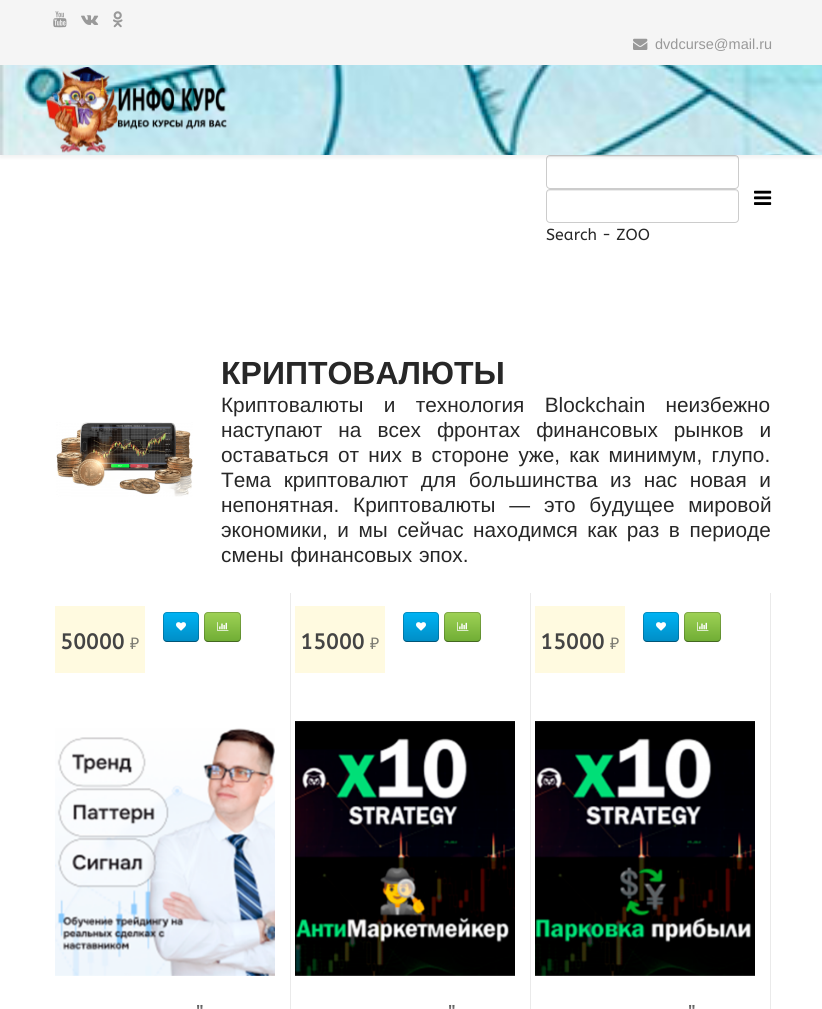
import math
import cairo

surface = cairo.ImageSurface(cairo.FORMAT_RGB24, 822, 1009)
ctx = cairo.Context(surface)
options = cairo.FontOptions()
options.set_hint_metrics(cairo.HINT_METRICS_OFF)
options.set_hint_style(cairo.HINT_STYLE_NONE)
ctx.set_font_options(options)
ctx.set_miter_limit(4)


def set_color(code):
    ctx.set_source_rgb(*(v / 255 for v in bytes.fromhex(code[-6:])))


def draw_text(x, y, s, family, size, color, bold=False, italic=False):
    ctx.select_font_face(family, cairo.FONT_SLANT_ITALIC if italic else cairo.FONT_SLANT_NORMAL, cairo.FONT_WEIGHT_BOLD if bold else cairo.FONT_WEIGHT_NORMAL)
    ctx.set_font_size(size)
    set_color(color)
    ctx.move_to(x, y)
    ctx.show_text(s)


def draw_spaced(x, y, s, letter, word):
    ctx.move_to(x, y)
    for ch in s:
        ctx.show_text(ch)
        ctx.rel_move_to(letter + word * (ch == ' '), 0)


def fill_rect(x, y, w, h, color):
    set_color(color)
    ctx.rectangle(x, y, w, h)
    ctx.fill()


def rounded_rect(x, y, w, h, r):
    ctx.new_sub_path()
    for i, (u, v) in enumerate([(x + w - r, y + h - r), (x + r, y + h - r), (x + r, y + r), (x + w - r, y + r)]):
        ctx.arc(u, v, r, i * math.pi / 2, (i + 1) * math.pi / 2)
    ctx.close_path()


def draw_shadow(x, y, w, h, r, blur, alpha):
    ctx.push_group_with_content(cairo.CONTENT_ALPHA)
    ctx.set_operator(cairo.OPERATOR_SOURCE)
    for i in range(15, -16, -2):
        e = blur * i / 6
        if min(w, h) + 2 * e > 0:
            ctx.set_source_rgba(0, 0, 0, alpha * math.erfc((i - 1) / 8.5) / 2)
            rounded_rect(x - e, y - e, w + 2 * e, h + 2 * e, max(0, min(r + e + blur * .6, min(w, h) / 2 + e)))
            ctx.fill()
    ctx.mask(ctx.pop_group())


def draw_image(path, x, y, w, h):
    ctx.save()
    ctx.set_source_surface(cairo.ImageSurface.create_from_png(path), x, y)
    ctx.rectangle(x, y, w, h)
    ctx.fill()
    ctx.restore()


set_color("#ffffff")
ctx.paint()
fill_rect(0, 0, 822, 65, "#f5f5f5")
draw_image("assets/img1.png", 53, 11, 14, 17)
draw_image("assets/img2.png", 81, 15, 18, 10)
draw_image("assets/img3.png", 113, 11, 10, 17)
draw_image("assets/img4.png", 633, 38, 15, 12)
draw_text(655, 49, "dvdcurse@mail.ru", "Liberation Sans", 14.5, "#999999")
set_color("#ececec")
ctx.new_path()
ctx.move_to(550, 157)
ctx.line_to(735, 157)
ctx.curve_to(737, 157, 738, 158, 738, 160)
ctx.curve_to(738, 158, 737, 156, 735, 156)
ctx.line_to(550, 156)
ctx.curve_to(548, 156, 547, 158, 547, 160)
ctx.curve_to(547, 158, 548, 157, 550, 157)
ctx.close_path()
ctx.fill()
rounded_rect(546.5, 155.5, 192, 33, 3.5)
set_color("#cccccc")
ctx.set_line_width(1)
ctx.stroke()
set_color("#000000")
draw_shadow(0, 68, 822, 90, 0, 1.5, 0.05)
draw_image("assets/img5.png", 0, 65, 822, 90)
draw_image("assets/img6.png", 45, 67, 182, 86)
draw_image("assets/img7.png", 754, 190, 18, 15)
set_color("#ececec")
ctx.new_path()
ctx.move_to(550, 191)
ctx.line_to(735, 191)
ctx.curve_to(737, 191, 738, 192, 738, 194)
ctx.curve_to(738, 192, 737, 190, 735, 190)
ctx.line_to(550, 190)
ctx.curve_to(548, 190, 547, 192, 547, 194)
ctx.curve_to(547, 192, 548, 191, 550, 191)
ctx.close_path()
ctx.fill()
rounded_rect(546.5, 189.5, 192, 33, 3.5)
set_color("#cccccc")
ctx.stroke()
draw_text(546, 240, "Search - ZOO", "ABeeZee", 16, "#272727")
draw_image("assets/img8.png", 56, 422, 137, 75)
draw_text(221, 384, "КРИПТОВАЛЮТЫ", "Liberation Sans", 32, "#272727", bold=True)
ctx.select_font_face("Liberation Sans")
ctx.set_font_size(20.8)
draw_spaced(221, 412, "Криптовалюты и технология Blockchain неизбежно", 0, 14.5)
draw_spaced(221, 437, "наступают на всех фронтах финансовых рынков и", 0, 10.25)
draw_spaced(221, 462, "оставаться от них в стороне уже, как минимум, глупо.", 0, 3.5)
draw_spaced(221, 487, "Тема криптовалют для большинства из нас новая и", 0, 6.75)
draw_spaced(221, 512, "непонятная. Криптовалюты — это будущее мировой", 0, 8)
draw_spaced(221, 537, "экономики, и мы сейчас находимся как раз в периоде", 0, 3.75)
draw_spaced(221, 562, "смены финансовых эпох.", 0, 1)
fill_rect(290, 593, 1, 416, "#eaeaea")
fill_rect(55, 606, 90, 67, "#fffae0")
draw_text(60, 649, "50000", "ABeeZee", 21.5, "#444444", bold=True)
draw_text(130, 649, "₽", "Noto Sans", 16, "#7c7b73")
gradient = cairo.LinearGradient(181, 612, 181, 642)
gradient.add_color_stop_rgba(0, 0, 0.706, 0.961, 1)
gradient.add_color_stop_rgba(1, 0, 0.553, 0.773, 1)
ctx.set_source(gradient)
rounded_rect(163, 612, 36, 30, 4)
ctx.fill()
ctx.new_path()
ctx.move_to(197.5, 640.5)
ctx.curve_to(197, 641, 196, 641.5, 195, 641.5)
ctx.line_to(167, 641.5)
ctx.curve_to(166, 641.5, 165, 641, 164.5, 640.5)
ctx.set_source_rgba(0, 0, 0, 0.4)
ctx.stroke()
ctx.new_path()
ctx.move_to(164.5, 640.5)
ctx.curve_to(164, 640, 163.5, 639, 163.5, 638)
ctx.line_to(163.5, 616)
ctx.curve_to(163.5, 615, 164, 614, 164.5, 613.5)
ctx.curve_to(165, 613, 166, 612.5, 167, 612.5)
ctx.line_to(195, 612.5)
ctx.curve_to(196, 612.5, 197, 613, 197.5, 613.5)
ctx.curve_to(198, 614, 198.5, 615, 198.5, 616)
ctx.line_to(198.5, 638)
ctx.curve_to(198.5, 639, 198, 640, 197.5, 640.5)
ctx.set_source_rgba(0, 0, 0, 0.2)
ctx.stroke()
draw_image("assets/img9.png", 176, 622, 10, 9)
gradient = cairo.LinearGradient(223, 612, 223, 642)
gradient.add_color_stop_rgba(0, 0.624, 0.824, 0.337, 1)
gradient.add_color_stop_rgba(1, 0.435, 0.675, 0.204, 1)
ctx.set_source(gradient)
rounded_rect(204, 612, 37, 30, 4)
ctx.fill()
ctx.new_path()
ctx.move_to(239.5, 640.5)
ctx.curve_to(239, 641, 238, 641.5, 237, 641.5)
ctx.line_to(208, 641.5)
ctx.curve_to(207, 641.5, 206, 641, 205.5, 640.5)
ctx.set_source_rgba(0, 0, 0, 0.4)
ctx.stroke()
ctx.new_path()
ctx.move_to(205.5, 640.5)
ctx.curve_to(205, 640, 204.5, 639, 204.5, 638)
ctx.line_to(204.5, 616)
ctx.curve_to(204.5, 615, 205, 614, 205.5, 613.5)
ctx.curve_to(206, 613, 207, 612.5, 208, 612.5)
ctx.line_to(237, 612.5)
ctx.curve_to(238, 612.5, 239, 613, 239.5, 613.5)
ctx.curve_to(240, 614, 240.5, 615, 240.5, 616)
ctx.line_to(240.5, 638)
ctx.curve_to(240.5, 639, 240, 640, 239.5, 640.5)
ctx.set_source_rgba(0, 0, 0, 0.2)
ctx.stroke()
draw_image("assets/img10.png", 217, 622, 12, 9)
draw_image("assets/img11.png", 55, 728, 220, 248)
draw_text(196, 1016, "\"", "Liberation Sans", 16, "#444444", bold=True)
gradient = cairo.LinearGradient(171, 1002, 171, 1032)
gradient.add_color_stop_rgba(0, 1, 1, 1, 0)
gradient.add_color_stop_rgba(0.8, 1, 1, 1, 1)
gradient.add_color_stop_rgba(1, 1, 1, 1, 1)
ctx.set_source(gradient)
ctx.rectangle(196, 1005, 7, 4)
ctx.fill()
fill_rect(530, 593, 1, 416, "#eaeaea")
fill_rect(295, 606, 90, 67, "#fffae0")
draw_text(300, 649, "15000", "ABeeZee", 21.5, "#444444", bold=True)
draw_text(370, 649, "₽", "Noto Sans", 16, "#7c7b73")
gradient = cairo.LinearGradient(421, 612, 421, 642)
gradient.add_color_stop_rgba(0, 0, 0.706, 0.961, 1)
gradient.add_color_stop_rgba(1, 0, 0.553, 0.773, 1)
ctx.set_source(gradient)
rounded_rect(403, 612, 36, 30, 4)
ctx.fill()
ctx.new_path()
ctx.move_to(437.5, 640.5)
ctx.curve_to(437, 641, 436, 641.5, 435, 641.5)
ctx.line_to(407, 641.5)
ctx.curve_to(406, 641.5, 405, 641, 404.5, 640.5)
ctx.set_source_rgba(0, 0, 0, 0.4)
ctx.stroke()
ctx.new_path()
ctx.move_to(404.5, 640.5)
ctx.curve_to(404, 640, 403.5, 639, 403.5, 638)
ctx.line_to(403.5, 616)
ctx.curve_to(403.5, 615, 404, 614, 404.5, 613.5)
ctx.curve_to(405, 613, 406, 612.5, 407, 612.5)
ctx.line_to(435, 612.5)
ctx.curve_to(436, 612.5, 437, 613, 437.5, 613.5)
ctx.curve_to(438, 614, 438.5, 615, 438.5, 616)
ctx.line_to(438.5, 638)
ctx.curve_to(438.5, 639, 438, 640, 437.5, 640.5)
ctx.set_source_rgba(0, 0, 0, 0.2)
ctx.stroke()
draw_image("assets/img9.png", 416, 622, 10, 9)
gradient = cairo.LinearGradient(463, 612, 463, 642)
gradient.add_color_stop_rgba(0, 0.624, 0.824, 0.337, 1)
gradient.add_color_stop_rgba(1, 0.435, 0.675, 0.204, 1)
ctx.set_source(gradient)
rounded_rect(444, 612, 37, 30, 4)
ctx.fill()
ctx.new_path()
ctx.move_to(479.5, 640.5)
ctx.curve_to(479, 641, 478, 641.5, 477, 641.5)
ctx.line_to(448, 641.5)
ctx.curve_to(447, 641.5, 446, 641, 445.5, 640.5)
ctx.set_source_rgba(0, 0, 0, 0.4)
ctx.stroke()
ctx.new_path()
ctx.move_to(445.5, 640.5)
ctx.curve_to(445, 640, 444.5, 639, 444.5, 638)
ctx.line_to(444.5, 616)
ctx.curve_to(444.5, 615, 445, 614, 445.5, 613.5)
ctx.curve_to(446, 613, 447, 612.5, 448, 612.5)
ctx.line_to(477, 612.5)
ctx.curve_to(478, 612.5, 479, 613, 479.5, 613.5)
ctx.curve_to(480, 614, 480.5, 615, 480.5, 616)
ctx.line_to(480.5, 638)
ctx.curve_to(480.5, 639, 480, 640, 479.5, 640.5)
ctx.set_source_rgba(0, 0, 0, 0.2)
ctx.stroke()
draw_image("assets/img10.png", 457, 622, 12, 9)
draw_image("assets/img12.png", 295, 721, 220, 255)
draw_text(448, 1016, "\"", "Liberation Sans", 16, "#444444", bold=True)
gradient = cairo.LinearGradient(411, 1002, 411, 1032)
gradient.add_color_stop_rgba(0, 1, 1, 1, 0)
gradient.add_color_stop_rgba(0.8, 1, 1, 1, 1)
gradient.add_color_stop_rgba(1, 1, 1, 1, 1)
ctx.set_source(gradient)
ctx.rectangle(448, 1005, 7, 4)
ctx.fill()
fill_rect(770, 593, 1, 416, "#eaeaea")
fill_rect(535, 606, 90, 67, "#fffae0")
draw_text(540, 649, "15000", "ABeeZee", 21.5, "#444444", bold=True)
draw_text(610, 649, "₽", "Noto Sans", 16, "#7c7b73")
gradient = cairo.LinearGradient(661, 612, 661, 642)
gradient.add_color_stop_rgba(0, 0, 0.706, 0.961, 1)
gradient.add_color_stop_rgba(1, 0, 0.553, 0.773, 1)
ctx.set_source(gradient)
rounded_rect(643, 612, 36, 30, 4)
ctx.fill()
ctx.new_path()
ctx.move_to(677.5, 640.5)
ctx.curve_to(677, 641, 676, 641.5, 675, 641.5)
ctx.line_to(647, 641.5)
ctx.curve_to(646, 641.5, 645, 641, 644.5, 640.5)
ctx.set_source_rgba(0, 0, 0, 0.4)
ctx.stroke()
ctx.new_path()
ctx.move_to(644.5, 640.5)
ctx.curve_to(644, 640, 643.5, 639, 643.5, 638)
ctx.line_to(643.5, 616)
ctx.curve_to(643.5, 615, 644, 614, 644.5, 613.5)
ctx.curve_to(645, 613, 646, 612.5, 647, 612.5)
ctx.line_to(675, 612.5)
ctx.curve_to(676, 612.5, 677, 613, 677.5, 613.5)
ctx.curve_to(678, 614, 678.5, 615, 678.5, 616)
ctx.line_to(678.5, 638)
ctx.curve_to(678.5, 639, 678, 640, 677.5, 640.5)
ctx.set_source_rgba(0, 0, 0, 0.2)
ctx.stroke()
draw_image("assets/img9.png", 656, 622, 10, 9)
gradient = cairo.LinearGradient(703, 612, 703, 642)
gradient.add_color_stop_rgba(0, 0.624, 0.824, 0.337, 1)
gradient.add_color_stop_rgba(1, 0.435, 0.675, 0.204, 1)
ctx.set_source(gradient)
rounded_rect(684, 612, 37, 30, 4)
ctx.fill()
ctx.new_path()
ctx.move_to(719.5, 640.5)
ctx.curve_to(719, 641, 718, 641.5, 717, 641.5)
ctx.line_to(688, 641.5)
ctx.curve_to(687, 641.5, 686, 641, 685.5, 640.5)
ctx.set_source_rgba(0, 0, 0, 0.4)
ctx.stroke()
ctx.new_path()
ctx.move_to(685.5, 640.5)
ctx.curve_to(685, 640, 684.5, 639, 684.5, 638)
ctx.line_to(684.5, 616)
ctx.curve_to(684.5, 615, 685, 614, 685.5, 613.5)
ctx.curve_to(686, 613, 687, 612.5, 688, 612.5)
ctx.line_to(717, 612.5)
ctx.curve_to(718, 612.5, 719, 613, 719.5, 613.5)
ctx.curve_to(720, 614, 720.5, 615, 720.5, 616)
ctx.line_to(720.5, 638)
ctx.curve_to(720.5, 639, 720, 640, 719.5, 640.5)
ctx.set_source_rgba(0, 0, 0, 0.2)
ctx.stroke()
draw_image("assets/img10.png", 697, 622, 12, 9)
draw_image("assets/img13.png", 535, 721, 220, 255)
draw_text(688, 1016, "\"", "Liberation Sans", 16, "#444444", bold=True)
gradient = cairo.LinearGradient(651, 1002, 651, 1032)
gradient.add_color_stop_rgba(0, 1, 1, 1, 0)
gradient.add_color_stop_rgba(0.8, 1, 1, 1, 1)
gradient.add_color_stop_rgba(1, 1, 1, 1, 1)
ctx.set_source(gradient)
ctx.rectangle(688, 1005, 7, 4)
ctx.fill()
surface.write_to_png("output.png")
